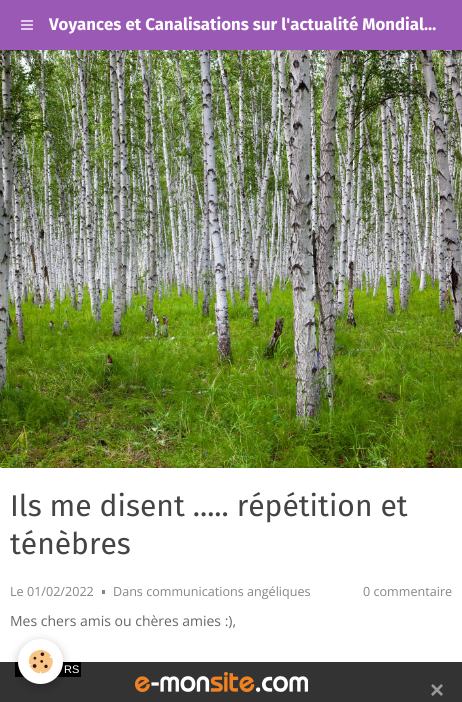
import math
import cairo

surface = cairo.ImageSurface(cairo.FORMAT_RGB24, 462, 702)
ctx = cairo.Context(surface)
options = cairo.FontOptions()
options.set_hint_metrics(cairo.HINT_METRICS_OFF)
options.set_hint_style(cairo.HINT_STYLE_NONE)
ctx.set_font_options(options)
ctx.set_miter_limit(4)


def set_color(code):
    ctx.set_source_rgb(*(v / 255 for v in bytes.fromhex(code[-6:])))


def draw_text(x, y, s, family, size, color, bold=False, italic=False):
    ctx.select_font_face(family, cairo.FONT_SLANT_ITALIC if italic else cairo.FONT_SLANT_NORMAL, cairo.FONT_WEIGHT_BOLD if bold else cairo.FONT_WEIGHT_NORMAL)
    ctx.set_font_size(size)
    set_color(color)
    ctx.move_to(x, y)
    ctx.show_text(s)


def fill_rect(x, y, w, h, color):
    set_color(color)
    ctx.rectangle(x, y, w, h)
    ctx.fill()


def rounded_rect(x, y, w, h, r):
    ctx.new_sub_path()
    for i, (u, v) in enumerate([(x + w - r, y + h - r), (x + r, y + h - r), (x + r, y + r), (x + w - r, y + r)]):
        ctx.arc(u, v, r, i * math.pi / 2, (i + 1) * math.pi / 2)
    ctx.close_path()


def draw_shadow(x, y, w, h, r, blur, alpha):
    ctx.push_group_with_content(cairo.CONTENT_ALPHA)
    ctx.set_operator(cairo.OPERATOR_SOURCE)
    for i in range(15, -16, -2):
        e = blur * i / 6
        if min(w, h) + 2 * e > 0:
            ctx.set_source_rgba(0, 0, 0, alpha * math.erfc((i - 1) / 8.5) / 2)
            rounded_rect(x - e, y - e, w + 2 * e, h + 2 * e, max(0, min(r + e + blur * .6, min(w, h) / 2 + e)))
            ctx.fill()
    ctx.mask(ctx.pop_group())


def draw_image(path, x, y, w, h):
    ctx.save()
    ctx.set_source_surface(cairo.ImageSurface.create_from_png(path), x, y)
    ctx.rectangle(x, y, w, h)
    ctx.fill()
    ctx.restore()


set_color("#ffffff")
ctx.paint()
fill_rect(0, 0, 462, 50, "#9b59b6")
draw_image("assets/img1.png", 21, 20, 12, 10)
draw_text(49, 30, "Voyances et Canalisations sur l'actualité Mondial…", "Fira Sans", 16.8, "#ffffff", bold=True)
draw_image("assets/img2.png", 0, 50, 462, 418)
draw_text(10, 516, "Ils me disent ..... répétition et", "Fira Sans", 30, "#444444")
draw_text(10, 554, "ténèbres", "Fira Sans", 30, "#444444")
draw_text(10, 596, "Le 01/02/2022", "Open Sans", 12.6, "#858585")
fill_rect(102, 590, 3, 4, "#858585")
draw_text(113, 596, "Dans communications angéliques", "Open Sans", 12.6, "#858585")
draw_text(363, 596, "0 commentaire", "Open Sans", 12.6, "#858585")
draw_text(10, 626, "Mes chers amis ou chères amies :),", "Open Sans", 14, "#666666")
ctx.set_source_rgba(0, 0, 0, 0.8)
ctx.rectangle(0, 662, 462, 40)
ctx.fill()
fill_rect(15, 662, 66, 15, "#000000")
set_color("#000000")
draw_shadow(18, 642, 45, 45, 22.5, 5, 0.24)
set_color("#ffffff")
ctx.arc(40.5, 661.5, 22.5, 0, 2 * math.pi)
ctx.fill()
draw_image("assets/img3.png", 28, 649, 25, 25)
draw_text(64, 673, "RS", "Liberation Sans", 11, "#ffffff")
draw_image("assets/img4.png", 135, 672, 173, 20)
draw_text(430, 698, "×", "Liberation Sans", 24, "#999999", bold=True)
surface.write_to_png("output.png")
